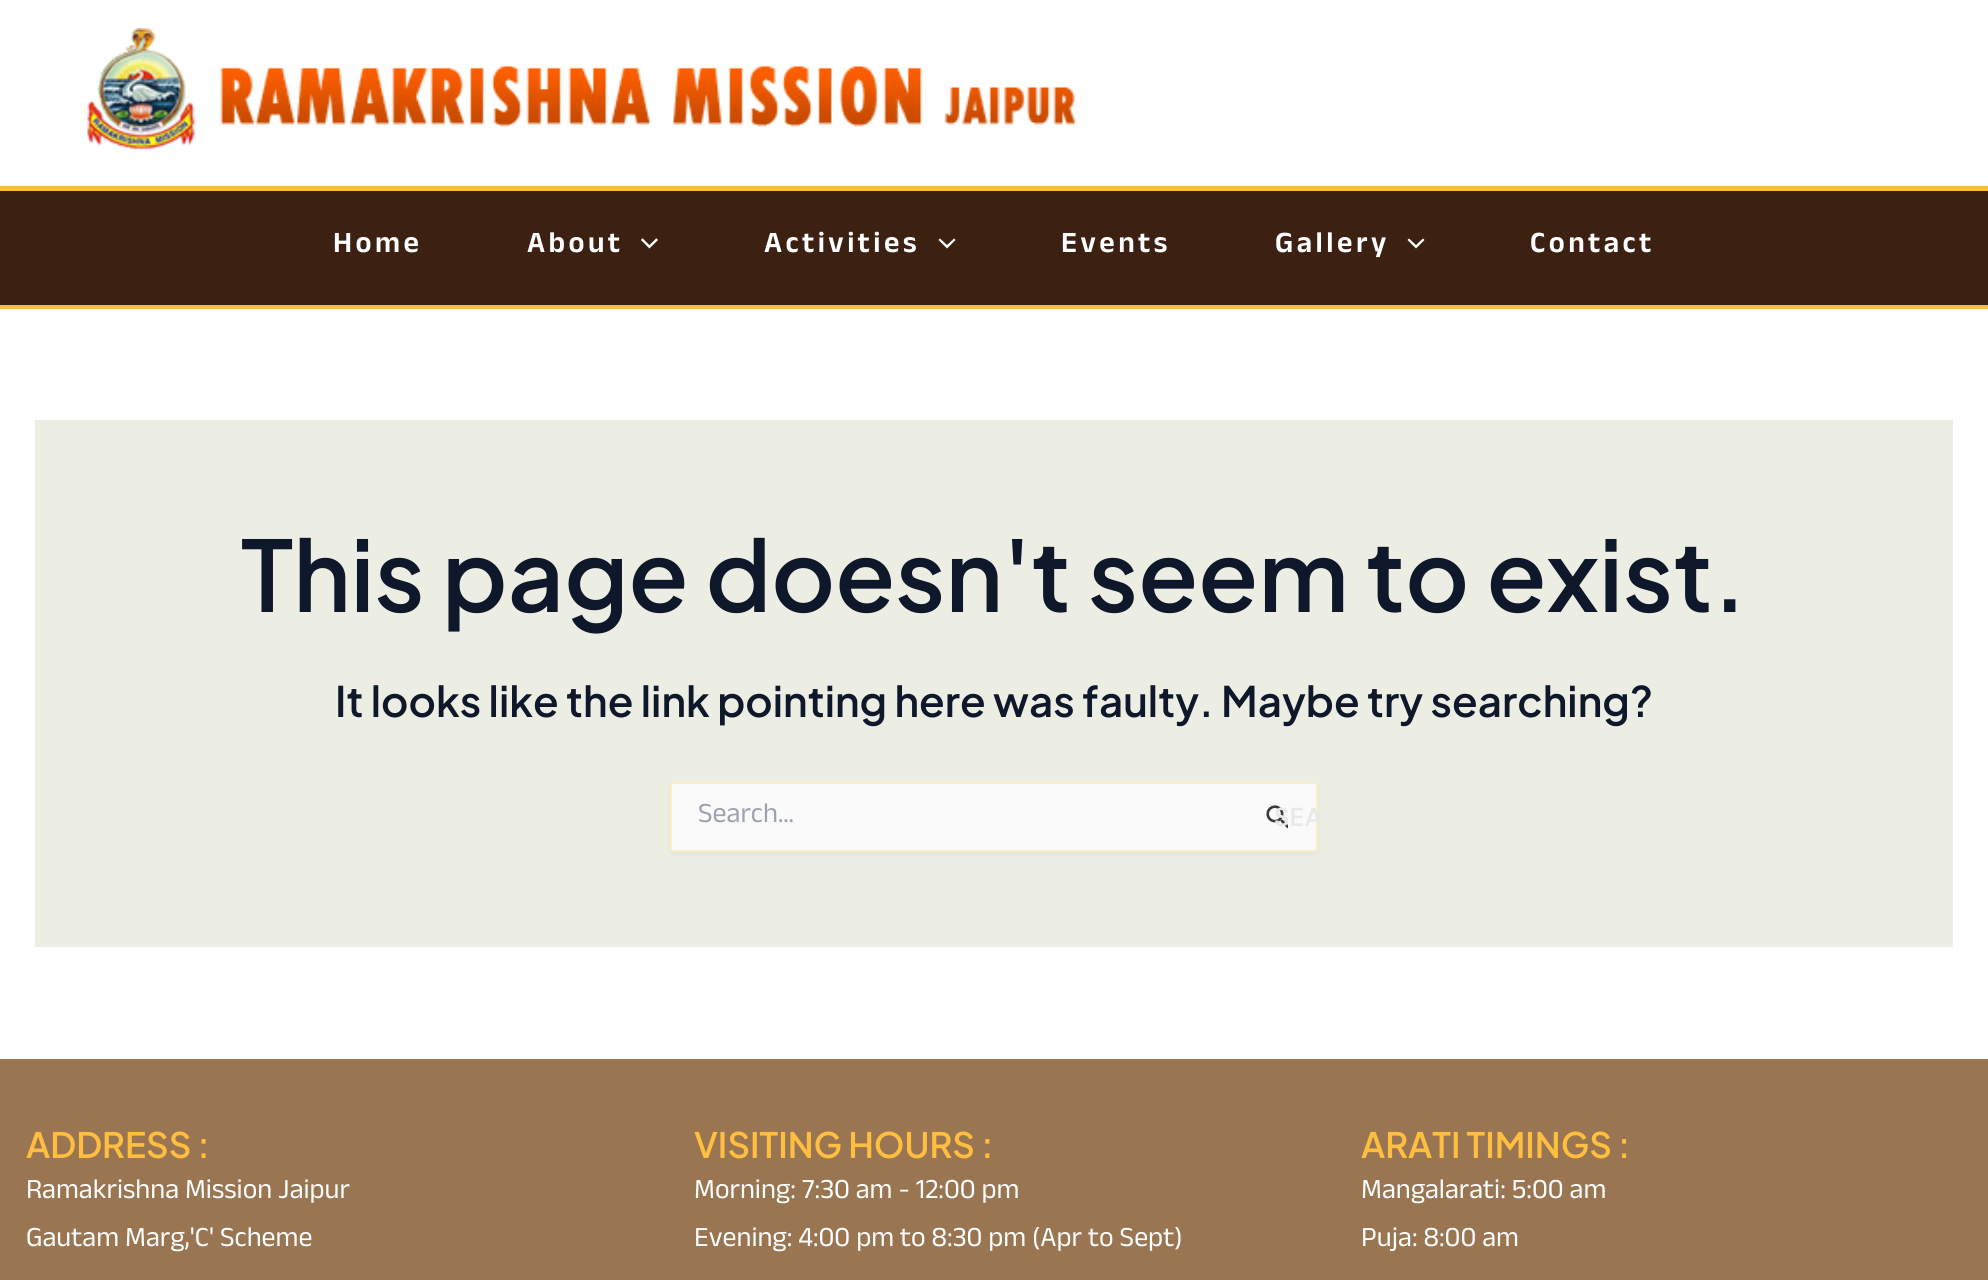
import math
import cairo

surface = cairo.ImageSurface(cairo.FORMAT_RGB24, 1988, 1280)
ctx = cairo.Context(surface)
options = cairo.FontOptions()
options.set_hint_metrics(cairo.HINT_METRICS_OFF)
options.set_hint_style(cairo.HINT_STYLE_NONE)
ctx.set_font_options(options)
ctx.set_miter_limit(4)


def set_color(code):
    ctx.set_source_rgb(*(v / 255 for v in bytes.fromhex(code[-6:])))


def draw_text(x, y, s, family, size, color, bold=False, italic=False):
    ctx.select_font_face(family, cairo.FONT_SLANT_ITALIC if italic else cairo.FONT_SLANT_NORMAL, cairo.FONT_WEIGHT_BOLD if bold else cairo.FONT_WEIGHT_NORMAL)
    ctx.set_font_size(size)
    set_color(color)
    ctx.move_to(x, y)
    ctx.show_text(s)


def draw_spaced(x, y, s, letter, word):
    ctx.move_to(x, y)
    for ch in s:
        ctx.show_text(ch)
        ctx.rel_move_to(letter + word * (ch == ' '), 0)


def fill_rect(x, y, w, h, color):
    set_color(color)
    ctx.rectangle(x, y, w, h)
    ctx.fill()


def rounded_rect(x, y, w, h, r):
    ctx.new_sub_path()
    for i, (u, v) in enumerate([(x + w - r, y + h - r), (x + r, y + h - r), (x + r, y + r), (x + w - r, y + r)]):
        ctx.arc(u, v, r, i * math.pi / 2, (i + 1) * math.pi / 2)
    ctx.close_path()


def draw_shadow(x, y, w, h, r, blur, alpha):
    ctx.push_group_with_content(cairo.CONTENT_ALPHA)
    ctx.set_operator(cairo.OPERATOR_SOURCE)
    for i in range(15, -16, -2):
        e = blur * i / 6
        if min(w, h) + 2 * e > 0:
            ctx.set_source_rgba(0, 0, 0, alpha * math.erfc((i - 1) / 8.5) / 2)
            rounded_rect(x - e, y - e, w + 2 * e, h + 2 * e, max(0, min(r + e + blur * .6, min(w, h) / 2 + e)))
            ctx.fill()
    ctx.mask(ctx.pop_group())


def draw_image(path, x, y, w, h):
    ctx.save()
    ctx.set_source_surface(cairo.ImageSurface.create_from_png(path), x, y)
    ctx.rectangle(x, y, w, h)
    ctx.fill()
    ctx.restore()


set_color("#ffffff")
ctx.paint()
fill_rect(0, 186, 1988, 5, "#ffbe40")
draw_image("assets/img1.png", 87, 28, 990, 123)
fill_rect(0, 305, 1988, 4, "#ffbe40")
fill_rect(0, 191, 1988, 114, "#3c2113")
ctx.select_font_face("Anek Devanagari SemiBold")
ctx.set_font_size(29.75)
set_color("#ffffff")
draw_spaced(333, 252, "Home", 3.5, 0)
draw_spaced(527, 252, "About", 3.5, 0)
draw_image("assets/img2.png", 641, 238, 17, 11)
draw_spaced(764, 252, "Activities", 3.5, 0)
ctx.new_path()
ctx.move_to(938.5, 240)
ctx.line_to(947, 248.5)
ctx.line_to(955.5, 240)
ctx.line_to(954, 238.5)
ctx.line_to(947, 245)
ctx.line_to(940, 238.5)
ctx.close_path()
ctx.fill()
draw_spaced(1061, 252, "Events", 3.5, 0)
draw_spaced(1275, 252, "Gallery", 3.5, 0)
ctx.new_path()
ctx.move_to(1407.5, 240)
ctx.line_to(1416, 248.5)
ctx.line_to(1424.5, 240)
ctx.line_to(1423, 238.5)
ctx.line_to(1416, 245)
ctx.line_to(1409, 238.5)
ctx.close_path()
ctx.fill()
draw_spaced(1530, 252, "Contact", 3.5, 0)
fill_rect(35, 420, 1918, 527, "#eceee3")
draw_text(241, 612, "This page doesn't seem to exist.", "Plus Jakarta Sans SemiBold", 98, "#0f172a")
draw_text(335, 717, "It looks like the link pointing here was faulty. Maybe try searching?", "Plus Jakarta Sans SemiBold", 42, "#0f172a")
set_color("#000000")
draw_shadow(670, 784, 648, 70, 4, 2, 0.05)
set_color("#fafafa")
rounded_rect(671, 783, 646, 68, 3)
ctx.fill_preserve()
set_color("#f9f0c8")
ctx.stroke()
draw_text(698, 822, "Search...", "Anek Devanagari", 28, "#9ca3af")
draw_image("assets/img3.png", 1266, 805, 22, 24)
ctx.save()
rounded_rect(1239, 782, 79, 72, 4)
ctx.clip()
draw_text(1274, 826, "SEA", "DM Sans SemiBold", 26, "#e8e8e6")
ctx.restore()
fill_rect(0, 1059, 1988, 221, "#9a7551")
draw_text(26, 1158, "ADDRESS :", "Plus Jakarta Sans SemiBold", 35, "#ffbe40")
draw_text(26, 1198, "Ramakrishna Mission Jaipur", "Anek Devanagari", 28, "#ffffff")
draw_text(26, 1246, "Gautam Marg,'C' Scheme", "Anek Devanagari", 28, "#ffffff")
draw_text(694, 1158, "VISITING HOURS :", "Plus Jakarta Sans SemiBold", 35, "#ffbe40")
draw_text(694, 1198, "Morning: 7:30 am - 12:00 pm", "Anek Devanagari", 28, "#ffffff")
draw_text(694, 1246, "Evening: 4:00 pm to 8:30 pm (Apr to Sept)", "Anek Devanagari", 28, "#ffffff")
draw_text(1361, 1158, "ARATI TIMINGS :", "Plus Jakarta Sans SemiBold", 35, "#ffbe40")
draw_text(1361, 1198, "Mangalarati: 5:00 am", "Anek Devanagari", 28, "#ffffff")
draw_text(1361, 1246, "Puja: 8:00 am", "Anek Devanagari", 28, "#ffffff")
surface.write_to_png("output.png")
